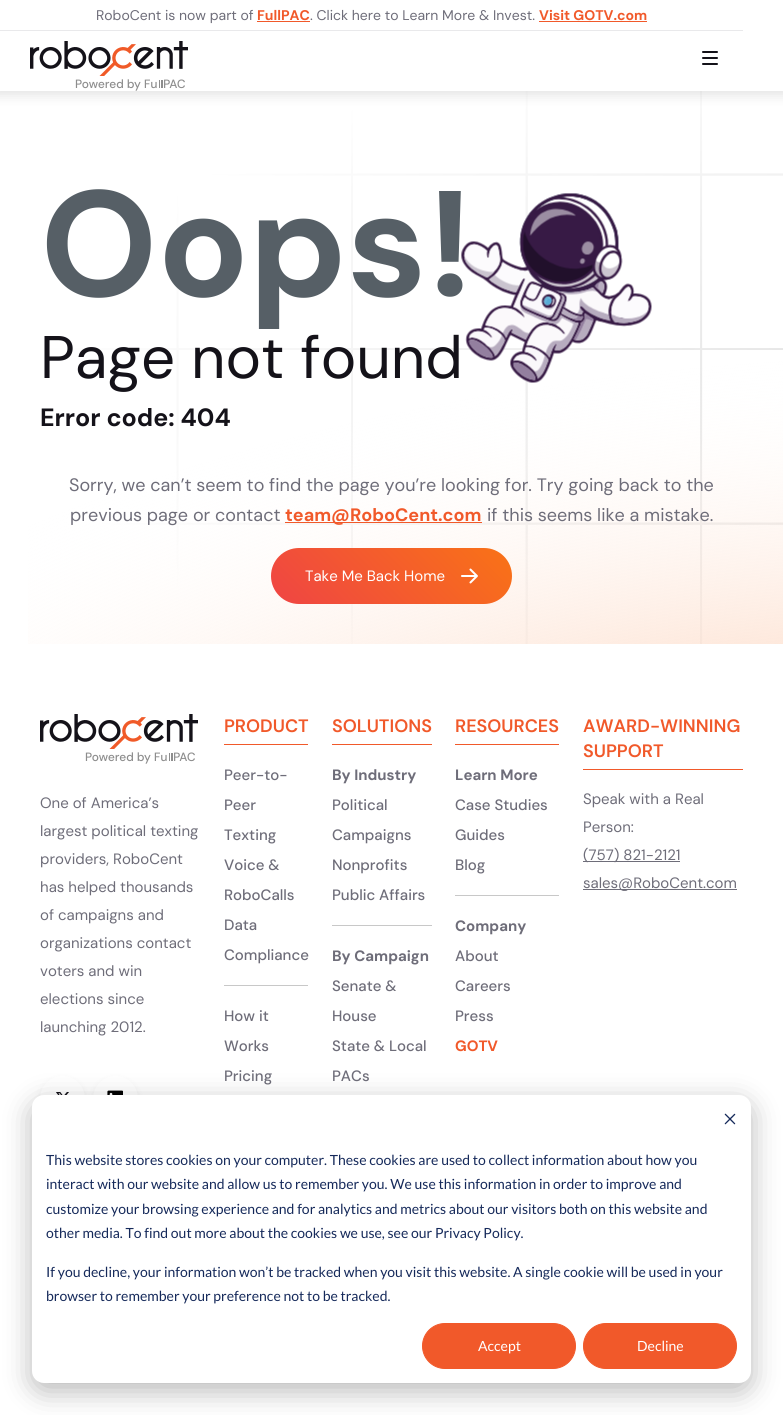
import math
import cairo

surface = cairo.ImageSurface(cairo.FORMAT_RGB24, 783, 1415)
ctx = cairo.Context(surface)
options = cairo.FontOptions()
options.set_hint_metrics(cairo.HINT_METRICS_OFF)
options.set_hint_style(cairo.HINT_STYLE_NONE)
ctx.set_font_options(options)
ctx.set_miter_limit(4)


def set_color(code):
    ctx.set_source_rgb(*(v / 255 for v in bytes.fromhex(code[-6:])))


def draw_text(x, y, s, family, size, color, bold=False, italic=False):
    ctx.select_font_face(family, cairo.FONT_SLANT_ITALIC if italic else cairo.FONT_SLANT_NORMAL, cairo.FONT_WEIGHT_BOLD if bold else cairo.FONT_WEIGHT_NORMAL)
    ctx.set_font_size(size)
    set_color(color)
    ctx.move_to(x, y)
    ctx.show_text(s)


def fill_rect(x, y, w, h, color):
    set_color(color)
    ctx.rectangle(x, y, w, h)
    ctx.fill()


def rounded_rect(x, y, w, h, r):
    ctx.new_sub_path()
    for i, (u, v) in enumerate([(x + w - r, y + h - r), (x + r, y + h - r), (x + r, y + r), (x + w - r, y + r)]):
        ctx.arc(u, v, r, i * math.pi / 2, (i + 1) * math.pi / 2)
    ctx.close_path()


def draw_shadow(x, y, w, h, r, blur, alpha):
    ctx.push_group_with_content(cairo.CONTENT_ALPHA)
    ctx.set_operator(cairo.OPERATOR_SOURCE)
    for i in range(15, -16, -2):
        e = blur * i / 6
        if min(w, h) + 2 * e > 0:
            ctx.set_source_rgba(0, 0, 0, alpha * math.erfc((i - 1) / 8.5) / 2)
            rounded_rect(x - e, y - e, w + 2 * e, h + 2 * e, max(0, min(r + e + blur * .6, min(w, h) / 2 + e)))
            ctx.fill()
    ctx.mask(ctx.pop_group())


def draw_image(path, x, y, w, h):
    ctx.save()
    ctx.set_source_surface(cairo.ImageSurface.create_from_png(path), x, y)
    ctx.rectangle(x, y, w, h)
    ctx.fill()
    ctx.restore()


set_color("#ffffff")
ctx.paint()
draw_image("assets/img2.png", 28, 91, 755, 553)
set_color("#000000")
draw_shadow(-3, -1, 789, 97, 0, 5.5, 0.1)
fill_rect(0, 0, 783, 91, "#ffffff")
fill_rect(0, 30, 743, 1, "#e9e9eb")
draw_text(96, 20, "RoboCent is now part of", "DM Sans", 14, "#6e6d79")
draw_text(257, 20, "FullPAC", "DM Sans", 14, "#f1592a", bold=True)
fill_rect(257, 21, 53, 1, "#f1592a")
draw_text(310, 20, ". Click here to Learn More & Invest.", "DM Sans", 14, "#6e6d79")
draw_text(539, 20, "Visit GOTV.com", "DM Sans", 14, "#f1592a", bold=True)
fill_rect(539, 21, 108, 1, "#f1592a")
draw_image("assets/img1.png", 30, 41, 158, 50)
set_color("#141219")
rounded_rect(702, 51, 16, 2, 1)
ctx.fill()
rounded_rect(702, 57, 16, 2, 1)
ctx.fill()
rounded_rect(702, 63, 16, 2, 1)
ctx.fill()
draw_text(40, 296, "Oops!", "DM Sans", 150, "#565f66", bold=True)
draw_text(40, 378, "Page not found", "DM Sans", 60, "#141219")
draw_text(40, 426, "Error code: 404", "DM Sans", 25, "#141219", bold=True)
draw_image("assets/img3.png", 461, 193, 191, 190)
draw_text(69, 491, "Sorry, we can’t seem to find the page you’re looking for. Try going back to the", "DM Sans", 18, "#6e6d79")
draw_text(70, 521, "previous page or contact", "DM Sans", 18, "#6e6d79")
fill_rect(285, 522, 197, 1, "#f1592a")
draw_text(285, 521, "team@RoboCent.com", "DM Sans", 18, "#f1592a", bold=True)
draw_text(487, 521, "if this seems like a mistake.", "DM Sans", 18, "#6e6d79")
gradient = cairo.LinearGradient(317, 650, 466, 502)
gradient.add_color_stop_rgba(0, 0.937, 0.267, 0.267, 1)
gradient.add_color_stop_rgba(1, 0.976, 0.451, 0.086, 1)
ctx.set_source(gradient)
rounded_rect(271, 548, 241, 56, 28)
ctx.fill()
draw_text(305, 581, "Take Me Back Home", "DM Sans", 15, "#ffffff")
draw_image("assets/img4.png", 461, 568, 17, 16)
draw_image("assets/img1.png", 40, 714, 158, 50)
draw_text(40, 808, "One of America’s", "DM Sans", 15, "#6e6d79")
draw_text(40, 836, "largest political texting", "DM Sans", 15, "#6e6d79")
draw_text(40, 864, "providers, RoboCent", "DM Sans", 15, "#6e6d79")
draw_text(40, 892, "has helped thousands", "DM Sans", 15, "#6e6d79")
draw_text(40, 920, "of campaigns and", "DM Sans", 15, "#6e6d79")
draw_text(40, 948, "organizations contact", "DM Sans", 15, "#6e6d79")
draw_text(40, 976, "voters and win", "DM Sans", 15, "#6e6d79")
draw_text(40, 1004, "elections since", "DM Sans", 15, "#6e6d79")
draw_text(40, 1032, "launching 2012.", "DM Sans", 15, "#6e6d79")
set_color("#000000")
draw_shadow(40, 1080, 45, 45, 22.5, 4, 0.07)
set_color("#ffffff")
ctx.arc(62.5, 1098.5, 22.5, 0, 2 * math.pi)
ctx.fill()
draw_image("assets/img5.png", 56, 1092, 13, 3)
set_color("#000000")
draw_shadow(93, 1080, 45, 45, 22.5, 4, 0.07)
set_color("#ffffff")
ctx.arc(115.5, 1098.5, 22.5, 0, 2 * math.pi)
ctx.fill()
draw_image("assets/img6.png", 107, 1090, 16, 5)
fill_rect(224, 744, 84, 1, "#f1592a")
draw_text(224, 732, "PRODUCT", "DM Sans SemiBold", 18, "#f1592a")
draw_text(224, 780, "Peer-to-", "DM Sans Medium", 15, "#6e6d79")
draw_text(224, 810, "Peer", "DM Sans Medium", 15, "#6e6d79")
draw_text(224, 840, "Texting", "DM Sans Medium", 15, "#6e6d79")
draw_text(224, 870, "Voice &", "DM Sans Medium", 15, "#6e6d79")
draw_text(224, 900, "RoboCalls", "DM Sans Medium", 15, "#6e6d79")
draw_text(224, 930, "Data", "DM Sans Medium", 15, "#6e6d79")
draw_text(224, 960, "Compliance", "DM Sans Medium", 15, "#6e6d79")
fill_rect(224, 985, 84, 1, "#c8c8c8")
draw_text(224, 1021, "How it", "DM Sans Medium", 15, "#6e6d79")
draw_text(224, 1051, "Works", "DM Sans Medium", 15, "#6e6d79")
draw_text(224, 1081, "Pricing", "DM Sans Medium", 15, "#6e6d79")
fill_rect(332, 744, 100, 1, "#f1592a")
draw_text(332, 732, "SOLUTIONS", "DM Sans SemiBold", 18, "#f1592a")
draw_text(332, 780, "By Industry", "DM Sans", 15, "#6e6d79", bold=True)
draw_text(332, 810, "Political", "DM Sans Medium", 15, "#6e6d79")
draw_text(332, 840, "Campaigns", "DM Sans Medium", 15, "#6e6d79")
draw_text(332, 870, "Nonprofits", "DM Sans Medium", 15, "#6e6d79")
draw_text(332, 900, "Public Affairs", "DM Sans Medium", 15, "#6e6d79")
fill_rect(332, 925, 100, 1, "#c8c8c8")
draw_text(332, 961, "By Campaign", "DM Sans", 15, "#6e6d79", bold=True)
draw_text(332, 991, "Senate &", "DM Sans Medium", 15, "#6e6d79")
draw_text(332, 1021, "House", "DM Sans Medium", 15, "#6e6d79")
draw_text(332, 1051, "State & Local", "DM Sans Medium", 15, "#6e6d79")
draw_text(332, 1081, "PACs", "DM Sans Medium", 15, "#6e6d79")
fill_rect(455, 744, 104, 1, "#f1592a")
draw_text(455, 732, "RESOURCES", "DM Sans SemiBold", 18, "#f1592a")
draw_text(455, 780, "Learn More", "DM Sans", 15, "#6e6d79", bold=True)
draw_text(455, 810, "Case Studies", "DM Sans Medium", 15, "#6e6d79")
draw_text(455, 840, "Guides", "DM Sans Medium", 15, "#6e6d79")
draw_text(455, 870, "Blog", "DM Sans Medium", 15, "#6e6d79")
fill_rect(455, 895, 104, 1, "#c8c8c8")
draw_text(455, 931, "Company", "DM Sans", 15, "#6e6d79", bold=True)
draw_text(455, 961, "About", "DM Sans Medium", 15, "#6e6d79")
draw_text(455, 991, "Careers", "DM Sans Medium", 15, "#6e6d79")
draw_text(455, 1021, "Press", "DM Sans Medium", 15, "#6e6d79")
draw_text(455, 1051, "GOTV", "DM Sans", 15, "#f1592a", bold=True)
fill_rect(583, 769, 160, 1, "#f1592a")
draw_text(583, 732, "AWARD-WINNING", "DM Sans SemiBold", 18, "#f1592a")
draw_text(583, 757, "SUPPORT", "DM Sans SemiBold", 18, "#f1592a")
draw_text(583, 804, "Speak with a Real", "DM Sans", 15, "#6e6d79")
draw_text(583, 832, "Person:", "DM Sans", 15, "#6e6d79")
fill_rect(583, 861, 97, 1, "#6e6d79")
draw_text(583, 860, "(757) 821-2121", "DM Sans", 15, "#6e6d79")
fill_rect(583, 889, 154, 1, "#6e6d79")
draw_text(583, 888, "sales@RoboCent.com", "DM Sans", 15, "#6e6d79")
set_color("#000000")
draw_shadow(32, 1103, 719, 288, 12, 14, 0.28)
set_color("#ffffff")
rounded_rect(32, 1095, 719, 288, 12)
ctx.fill()
draw_image("assets/img7.png", 724, 1113, 12, 12)
draw_text(46, 1165, "This website stores cookies on your computer. These cookies are used to collect information about how you", "Lato", 14, "#15295a")
draw_text(46, 1189, "interact with our website and allow us to remember you. We use this information in order to improve and", "Lato", 14, "#15295a")
draw_text(46, 1214, "customize your browsing experience and for analytics and metrics about our visitors both on this website and", "Lato", 14, "#15295a")
draw_text(46, 1238, "other media. To find out more about the cookies we use, see our Privacy Policy.", "Lato", 14, "#15295a")
draw_text(46, 1277, "If you decline, your information won’t be tracked when you visit this website. A single cookie will be used in your", "Lato", 14, "#15295a")
draw_text(46, 1301, "browser to remember your preference not to be tracked.", "Lato", 14, "#15295a")
set_color("#f1592a")
rounded_rect(422.5, 1323.5, 153, 45, 22.5)
ctx.fill_preserve()
ctx.set_line_width(1)
ctx.stroke()
draw_text(478, 1351, "Accept", "Lato", 14, "#ffffff")
set_color("#f1592a")
rounded_rect(583.5, 1323.5, 153, 45, 22.5)
ctx.fill_preserve()
ctx.stroke()
draw_text(637, 1351, "Decline", "Lato", 14, "#ffffff")
surface.write_to_png("output.png")
